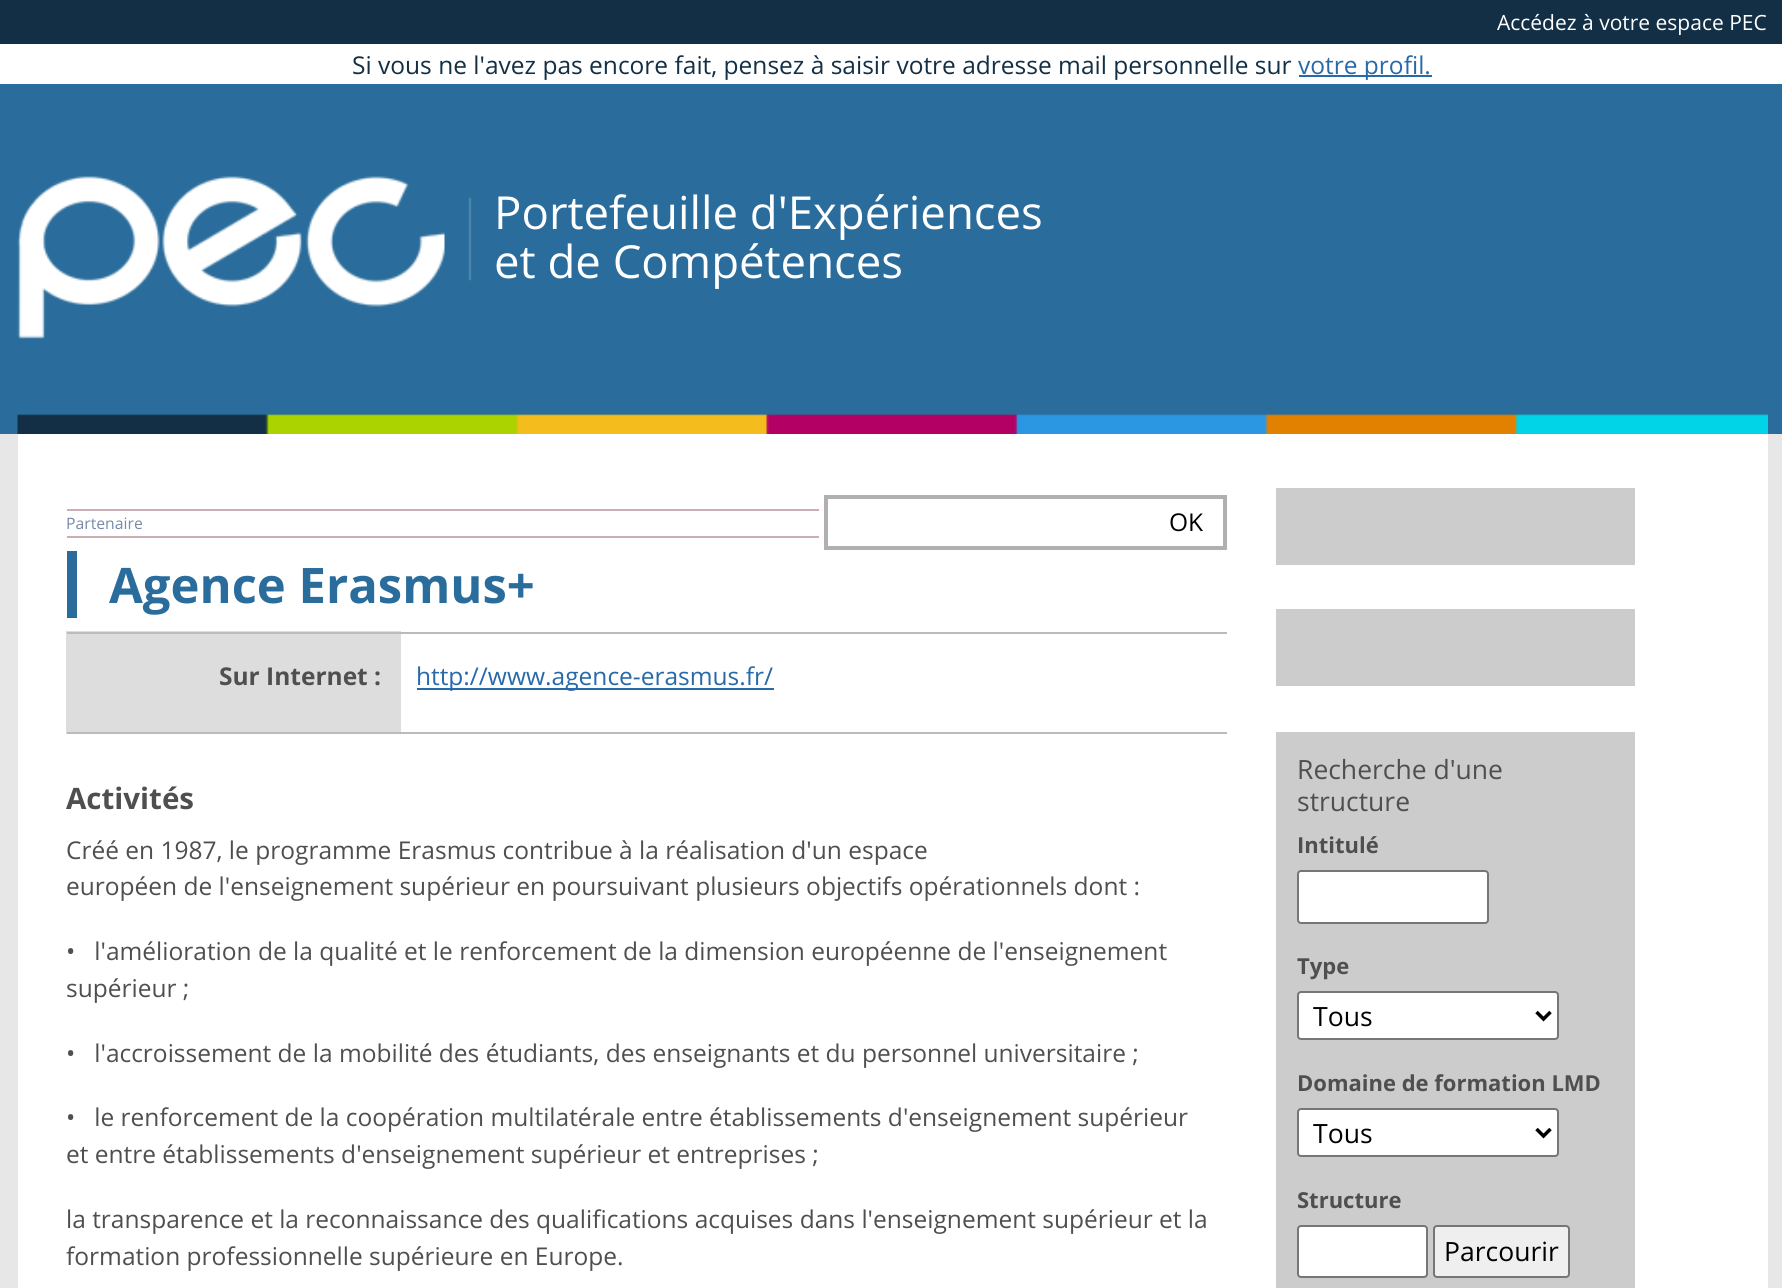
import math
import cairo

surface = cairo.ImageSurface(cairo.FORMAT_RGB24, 1782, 1288)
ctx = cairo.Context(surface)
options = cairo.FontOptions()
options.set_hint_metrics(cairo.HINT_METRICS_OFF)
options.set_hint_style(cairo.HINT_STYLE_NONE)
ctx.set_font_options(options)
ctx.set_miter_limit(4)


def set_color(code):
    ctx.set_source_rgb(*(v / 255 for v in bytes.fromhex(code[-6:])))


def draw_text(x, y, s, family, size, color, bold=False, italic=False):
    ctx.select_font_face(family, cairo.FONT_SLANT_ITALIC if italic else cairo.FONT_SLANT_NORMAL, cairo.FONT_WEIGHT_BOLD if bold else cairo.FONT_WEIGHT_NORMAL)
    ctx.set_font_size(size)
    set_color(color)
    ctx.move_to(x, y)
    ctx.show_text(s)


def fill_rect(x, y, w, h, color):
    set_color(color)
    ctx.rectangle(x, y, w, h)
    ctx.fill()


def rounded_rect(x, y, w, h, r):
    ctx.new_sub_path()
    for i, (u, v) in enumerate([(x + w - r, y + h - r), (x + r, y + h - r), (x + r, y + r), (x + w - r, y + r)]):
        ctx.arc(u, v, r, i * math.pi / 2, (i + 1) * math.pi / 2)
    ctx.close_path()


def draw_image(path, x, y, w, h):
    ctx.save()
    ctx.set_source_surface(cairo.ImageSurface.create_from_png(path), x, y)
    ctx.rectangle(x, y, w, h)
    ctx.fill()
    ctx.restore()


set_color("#e7e7e7")
ctx.paint()
fill_rect(0, 0, 1782, 44, "#122f45")
draw_text(1497, 30, "Accédez à votre espace PEC", "Open Sans", 21, "#ffffff")
fill_rect(0, 44, 1782, 40, "#ffffff")
draw_text(352, 74, "Si vous ne l'avez pas encore fait, pensez à saisir votre adresse mail personnelle sur", "Open Sans", 24.5, "#122f45")
fill_rect(1299, 75, 133, 2, "#2869a9")
draw_text(1298, 74, "votre profil.", "Open Sans", 24.5, "#2869a9")
fill_rect(0, 84, 1782, 350, "#2a6d9c")
draw_image("assets/img1.png", 17, 176, 1751, 258)
draw_text(494, 229, "Portefeuille d'Expériences", "Open Sans", 45.5, "#ffffff")
draw_text(494, 278, "et de Compétences", "Open Sans", 45.5, "#ffffff")
fill_rect(18, 434, 1750, 854, "#ffffff")
fill_rect(67, 509, 752, 2, "#cbadb5")
fill_rect(67, 536, 752, 2, "#cbadb5")
draw_text(66, 529, "Partenaire", "Open Sans", 15.75, "#778aaa")
ctx.rectangle(826, 497, 399, 51)
set_color("#b0b0b0")
ctx.set_line_width(4)
ctx.stroke()
draw_text(1169, 531, "OK", "Open Sans", 24.5, "#000000")
fill_rect(67, 551, 10, 67, "#2a6d9c")
draw_text(109, 603, "Agence Erasmus+", "Open Sans", 49, "#2a6d9c", bold=True)
fill_rect(66, 631, 335, 103, "#dddddd")
fill_rect(67, 632, 1160, 2, "#bbbbbb")
fill_rect(67, 732, 1160, 2, "#bbbbbb")
draw_text(219, 685, "Sur Internet :", "Open Sans", 24.5, "#4f4f4f", bold=True)
fill_rect(417, 688, 357, 2, "#2869a9")
draw_text(416, 685, "http://www.agence-erasmus.fr/", "Open Sans", 24.5, "#2869a9")
draw_text(66, 809, "Activités", "Open Sans", 29.5, "#4f4f4f", bold=True)
draw_text(66, 859, "Créé en 1987, le programme Erasmus contribue à la réalisation d'un espace", "Open Sans", 24.5, "#4f4f4f")
draw_text(66, 895, "européen de l'enseignement supérieur en poursuivant plusieurs objectifs opérationnels dont :", "Open Sans", 24.5, "#4f4f4f")
draw_text(66, 960, "•   l'amélioration de la qualité et le renforcement de la dimension européenne de l'enseignement", "Open Sans", 24.5, "#4f4f4f")
draw_text(66, 997, "supérieur ;", "Open Sans", 24.5, "#4f4f4f")
draw_text(66, 1062, "•   l'accroissement de la mobilité des étudiants, des enseignants et du personnel universitaire ;", "Open Sans", 24.5, "#4f4f4f")
draw_text(66, 1126, "•   le renforcement de la coopération multilatérale entre établissements d'enseignement supérieur", "Open Sans", 24.5, "#4f4f4f")
draw_text(66, 1163, "et entre établissements d'enseignement supérieur et entreprises ;", "Open Sans", 24.5, "#4f4f4f")
draw_text(66, 1228, "la transparence et la reconnaissance des qualifications acquises dans l'enseignement supérieur et la", "Open Sans", 24.5, "#4f4f4f")
draw_text(66, 1265, "formation professionnelle supérieure en Europe.", "Open Sans", 24.5, "#4f4f4f")
fill_rect(1276, 488, 359, 77, "#cccccc")
fill_rect(1276, 609, 359, 77, "#cccccc")
fill_rect(1276, 732, 359, 556, "#cccccc")
draw_text(1297, 779, "Recherche d'une", "Open Sans", 26.5, "#4f4f4f")
draw_text(1297, 811, "structure", "Open Sans", 26.5, "#4f4f4f")
draw_text(1297, 853, "Intitulé", "Open Sans", 22, "#4f4f4f", bold=True)
set_color("#ffffff")
rounded_rect(1298, 871, 190, 52, 3)
ctx.fill_preserve()
set_color("#767676")
ctx.set_line_width(2)
ctx.stroke()
draw_text(1297, 974, "Type", "Open Sans", 22, "#4f4f4f", bold=True)
set_color("#ffffff")
rounded_rect(1298, 992, 260, 47, 3)
ctx.fill_preserve()
set_color("#767676")
ctx.stroke()
ctx.new_path()
ctx.move_to(1536.5, 1012)
ctx.line_to(1543.5, 1019)
ctx.line_to(1550.5, 1012)
set_color("#000000")
ctx.set_line_width(3.5)
ctx.stroke()
draw_text(1313, 1026, "Tous", "Open Sans", 26.5, "#000000")
draw_text(1297, 1091, "Domaine de formation LMD", "Open Sans", 22, "#4f4f4f", bold=True)
set_color("#ffffff")
rounded_rect(1298, 1109, 260, 47, 3)
ctx.fill_preserve()
set_color("#767676")
ctx.set_line_width(2)
ctx.stroke()
ctx.new_path()
ctx.move_to(1536.5, 1129)
ctx.line_to(1543.5, 1136)
ctx.line_to(1550.5, 1129)
set_color("#000000")
ctx.set_line_width(3.5)
ctx.stroke()
draw_text(1313, 1143, "Tous", "Open Sans", 26.5, "#000000")
draw_text(1297, 1208, "Structure", "Open Sans", 22, "#4f4f4f", bold=True)
set_color("#ffffff")
rounded_rect(1298, 1226, 129, 51, 3)
ctx.fill_preserve()
set_color("#767676")
ctx.set_line_width(2)
ctx.stroke()
set_color("#efefef")
rounded_rect(1434, 1226, 135, 51, 3)
ctx.fill_preserve()
set_color("#767676")
ctx.stroke()
draw_text(1444, 1261, "Parcourir", "Open Sans", 26.5, "#000000")
surface.write_to_png("output.png")
